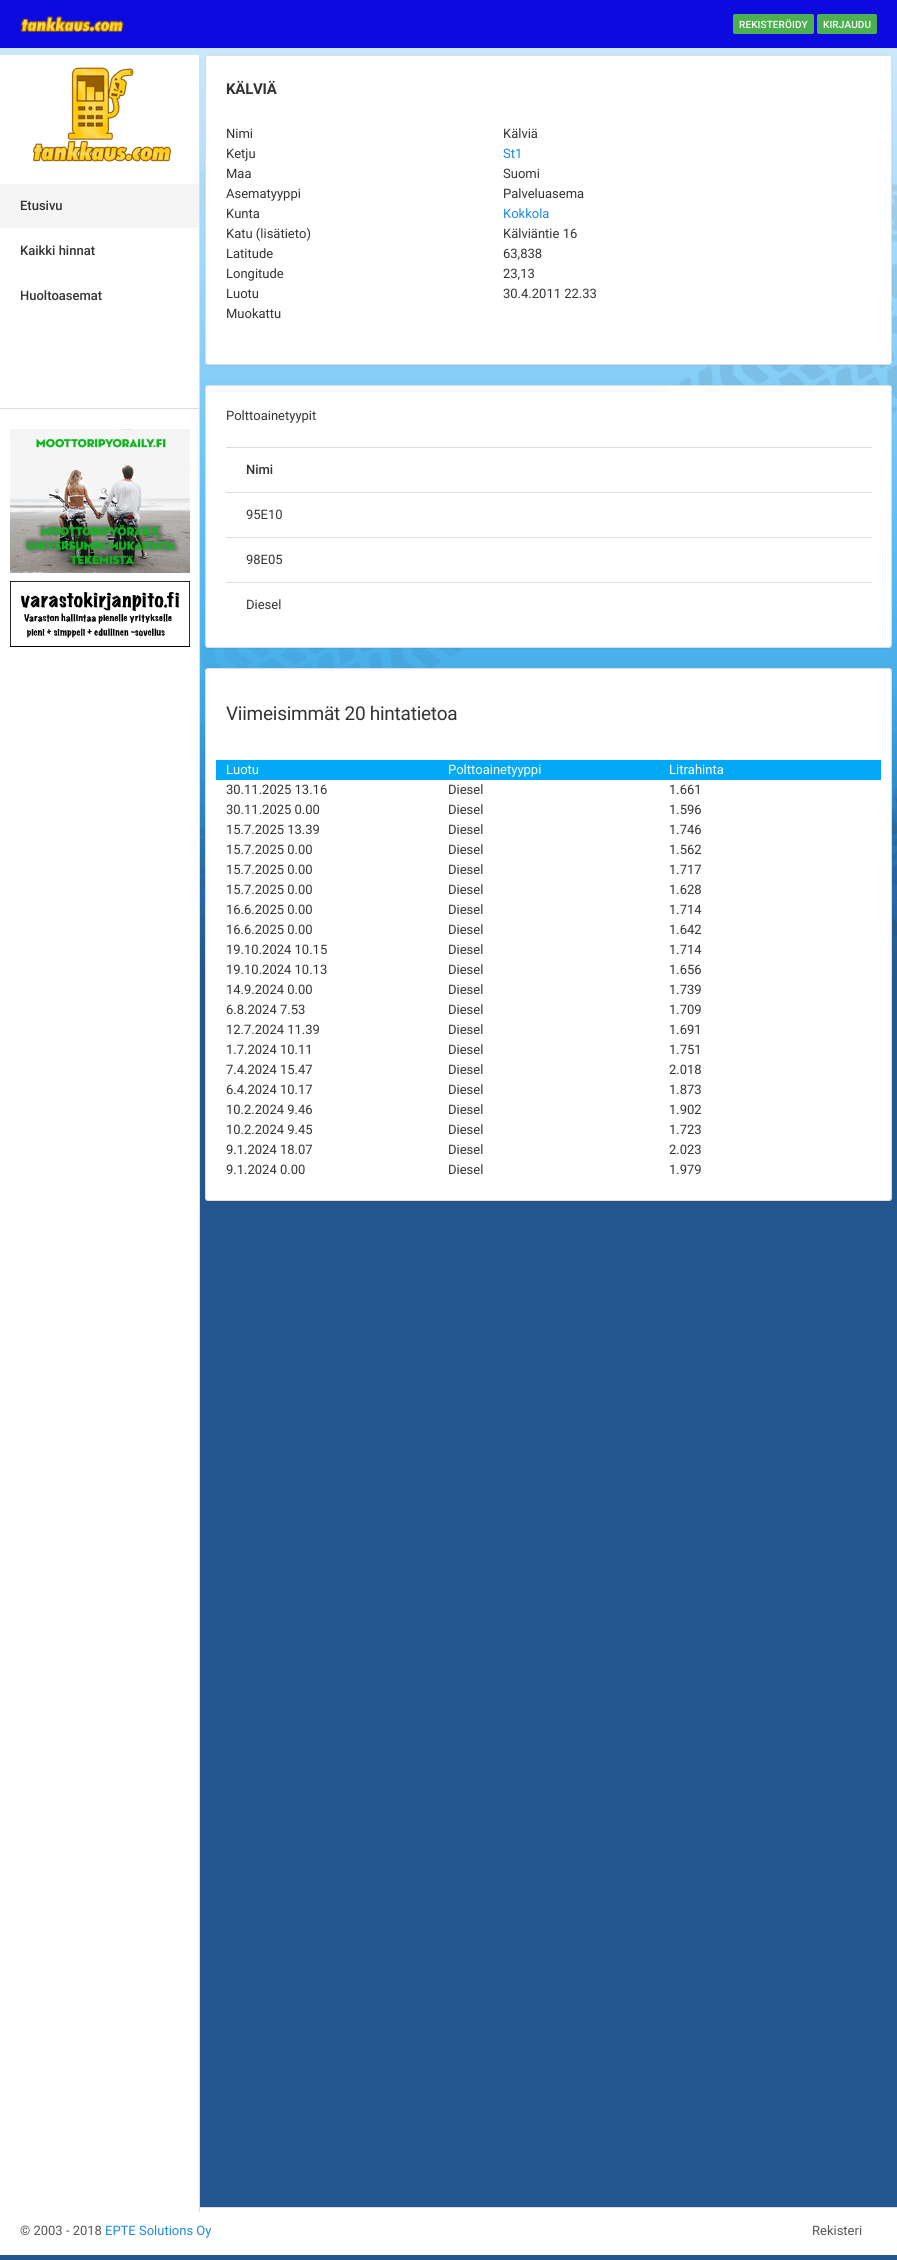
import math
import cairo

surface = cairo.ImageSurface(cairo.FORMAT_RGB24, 897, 2260)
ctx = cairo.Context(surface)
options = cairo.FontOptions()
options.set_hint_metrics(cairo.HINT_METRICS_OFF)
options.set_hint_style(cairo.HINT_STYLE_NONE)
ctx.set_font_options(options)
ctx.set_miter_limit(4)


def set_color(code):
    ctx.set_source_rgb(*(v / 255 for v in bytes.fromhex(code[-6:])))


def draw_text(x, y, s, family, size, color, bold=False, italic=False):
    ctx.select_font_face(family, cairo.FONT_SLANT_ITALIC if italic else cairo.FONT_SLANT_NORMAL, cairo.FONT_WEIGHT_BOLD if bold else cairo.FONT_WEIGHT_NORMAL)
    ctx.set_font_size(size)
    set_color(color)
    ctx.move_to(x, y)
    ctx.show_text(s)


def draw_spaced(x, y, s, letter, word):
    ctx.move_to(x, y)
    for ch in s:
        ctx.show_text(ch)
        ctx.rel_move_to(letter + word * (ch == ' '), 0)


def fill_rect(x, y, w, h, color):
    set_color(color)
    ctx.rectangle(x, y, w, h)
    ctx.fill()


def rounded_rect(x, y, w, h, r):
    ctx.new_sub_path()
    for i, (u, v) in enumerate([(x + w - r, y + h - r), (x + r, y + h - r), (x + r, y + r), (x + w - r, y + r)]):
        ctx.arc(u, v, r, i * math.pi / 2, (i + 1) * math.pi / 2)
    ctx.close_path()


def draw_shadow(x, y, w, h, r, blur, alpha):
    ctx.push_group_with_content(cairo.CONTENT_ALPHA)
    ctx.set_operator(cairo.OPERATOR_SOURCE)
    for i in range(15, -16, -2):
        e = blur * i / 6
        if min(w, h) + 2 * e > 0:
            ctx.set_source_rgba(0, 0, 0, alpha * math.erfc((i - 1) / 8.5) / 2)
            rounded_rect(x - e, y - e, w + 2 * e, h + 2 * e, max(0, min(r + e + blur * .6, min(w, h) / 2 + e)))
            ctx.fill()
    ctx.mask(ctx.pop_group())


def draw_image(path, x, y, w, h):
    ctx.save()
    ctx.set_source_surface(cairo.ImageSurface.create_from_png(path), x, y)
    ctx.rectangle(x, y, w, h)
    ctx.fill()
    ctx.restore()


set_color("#24558e")
ctx.paint()
draw_image("assets/img1.png", 0, 48, 897, 1112)
fill_rect(0, 0, 897, 48, "#0d0adf")
draw_image("assets/img2.png", 20, 16, 104, 16)
set_color("#4caf50")
rounded_rect(733.5, 14.5, 80, 19, 1.5)
ctx.fill_preserve()
ctx.set_line_width(1)
ctx.stroke()
ctx.select_font_face("Roboto Medium")
ctx.set_font_size(10)
set_color("#ffffff")
draw_spaced(739, 28, "REKISTERÖIDY", 0.1, 0)
set_color("#4caf50")
rounded_rect(817.5, 14.5, 59, 19, 1.5)
ctx.fill_preserve()
ctx.stroke()
set_color("#ffffff")
draw_spaced(823, 28, "KIRJAUDU", 0.1, 0)
fill_rect(0, 55, 199, 2153, "#ffffff")
fill_rect(0, 2208, 897, 47, "#ffffff")
fill_rect(199, 55, 1, 2157, "#dddddd")
draw_image("assets/img3.png", 33, 67, 138, 95)
fill_rect(0, 184, 199, 44, "#f5f5f5")
draw_text(20, 210, "Etusivu", "Roboto Medium", 13, "#333333")
draw_text(20, 255, "Kaikki hinnat", "Roboto Medium", 13, "#333333")
draw_text(20, 300, "Huoltoasemat", "Roboto Medium", 13, "#333333")
fill_rect(0, 408, 199, 1, "#dddddd")
draw_image("assets/img4.png", 10, 429, 180, 144)
draw_image("assets/img5.png", 10, 581, 180, 66)
set_color("#000000")
draw_shadow(205, 56, 687, 310, 3, 0.5, 0.05)
set_color("#ffffff")
rounded_rect(205.5, 55.5, 686, 309, 2.5)
ctx.fill_preserve()
set_color("#dddddd")
ctx.stroke()
ctx.select_font_face("Roboto", cairo.FONT_SLANT_NORMAL, cairo.FONT_WEIGHT_BOLD)
ctx.set_font_size(15)
set_color("#333333")
draw_spaced(226, 94, "KÄLVIÄ", -0.25, 0)
draw_text(226, 138, "Nimi", "Roboto", 13, "#333333")
draw_text(503, 138, "Kälviä", "Roboto", 13, "#333333")
draw_text(226, 158, "Ketju", "Roboto", 13, "#333333")
draw_text(503, 158, "St1", "Roboto", 13, "#1e88e5")
draw_text(226, 178, "Maa", "Roboto", 13, "#333333")
draw_text(503, 178, "Suomi", "Roboto", 13, "#333333")
draw_text(226, 198, "Asematyyppi", "Roboto", 13, "#333333")
draw_text(503, 198, "Palveluasema", "Roboto", 13, "#333333")
draw_text(226, 218, "Kunta", "Roboto", 13, "#333333")
draw_text(503, 218, "Kokkola", "Roboto", 13, "#1e88e5")
draw_text(226, 238, "Katu (lisätieto)", "Roboto", 13, "#333333")
draw_text(503, 238, "Kälviäntie 16", "Roboto", 13, "#333333")
draw_text(226, 258, "Latitude", "Roboto", 13, "#333333")
draw_text(503, 258, "63,838", "Roboto", 13, "#333333")
draw_text(226, 278, "Longitude", "Roboto", 13, "#333333")
draw_text(503, 278, "23,13", "Roboto", 13, "#333333")
draw_text(226, 298, "Luotu", "Roboto", 13, "#333333")
draw_text(503, 298, "30.4.2011 22.33", "Roboto", 13, "#333333")
draw_text(226, 318, "Muokattu", "Roboto", 13, "#333333")
set_color("#000000")
draw_shadow(205, 386, 687, 263, 3, 0.5, 0.05)
set_color("#ffffff")
rounded_rect(205.5, 385.5, 686, 262, 2.5)
ctx.fill_preserve()
set_color("#dddddd")
ctx.stroke()
draw_text(226, 420, "Polttoainetyypit", "Roboto", 13, "#333333")
fill_rect(226, 447, 646, 1, "#dddddd")
draw_text(246, 474, "Nimi", "Roboto Medium", 13, "#333333")
fill_rect(226, 492, 646, 1, "#dddddd")
draw_text(246, 519, "95E10", "Roboto", 13, "#333333")
fill_rect(226, 537, 646, 1, "#dddddd")
draw_text(246, 564, "98E05", "Roboto", 13, "#333333")
fill_rect(226, 582, 646, 1, "#dddddd")
draw_text(246, 609, "Diesel", "Roboto", 13, "#333333")
set_color("#000000")
draw_shadow(205, 669, 687, 533, 3, 0.5, 0.05)
set_color("#ffffff")
rounded_rect(205.5, 668.5, 686, 532, 2.5)
ctx.fill_preserve()
set_color("#dddddd")
ctx.stroke()
ctx.set_font_size(19)
set_color("#333333")
draw_spaced(226, 720, "Viimeisimmät 20 hintatietoa", -0.25, 0)
fill_rect(216, 760, 665, 20, "#03a9f4")
draw_text(226, 774, "Luotu", "Roboto", 13, "#ffffff")
draw_text(448, 774, "Polttoainetyyppi", "Roboto", 13, "#ffffff")
draw_text(669, 774, "Litrahinta", "Roboto", 13, "#ffffff")
draw_text(226, 794, "30.11.2025 13.16", "Roboto", 13, "#333333")
draw_text(448, 794, "Diesel", "Roboto", 13, "#333333")
draw_text(669, 794, "1.661", "Roboto", 13, "#333333")
draw_text(226, 814, "30.11.2025 0.00", "Roboto", 13, "#333333")
draw_text(448, 814, "Diesel", "Roboto", 13, "#333333")
draw_text(669, 814, "1.596", "Roboto", 13, "#333333")
draw_text(226, 834, "15.7.2025 13.39", "Roboto", 13, "#333333")
draw_text(448, 834, "Diesel", "Roboto", 13, "#333333")
draw_text(669, 834, "1.746", "Roboto", 13, "#333333")
draw_text(226, 854, "15.7.2025 0.00", "Roboto", 13, "#333333")
draw_text(448, 854, "Diesel", "Roboto", 13, "#333333")
draw_text(669, 854, "1.562", "Roboto", 13, "#333333")
draw_text(226, 874, "15.7.2025 0.00", "Roboto", 13, "#333333")
draw_text(448, 874, "Diesel", "Roboto", 13, "#333333")
draw_text(669, 874, "1.717", "Roboto", 13, "#333333")
draw_text(226, 894, "15.7.2025 0.00", "Roboto", 13, "#333333")
draw_text(448, 894, "Diesel", "Roboto", 13, "#333333")
draw_text(669, 894, "1.628", "Roboto", 13, "#333333")
draw_text(226, 914, "16.6.2025 0.00", "Roboto", 13, "#333333")
draw_text(448, 914, "Diesel", "Roboto", 13, "#333333")
draw_text(669, 914, "1.714", "Roboto", 13, "#333333")
draw_text(226, 934, "16.6.2025 0.00", "Roboto", 13, "#333333")
draw_text(448, 934, "Diesel", "Roboto", 13, "#333333")
draw_text(669, 934, "1.642", "Roboto", 13, "#333333")
draw_text(226, 954, "19.10.2024 10.15", "Roboto", 13, "#333333")
draw_text(448, 954, "Diesel", "Roboto", 13, "#333333")
draw_text(669, 954, "1.714", "Roboto", 13, "#333333")
draw_text(226, 974, "19.10.2024 10.13", "Roboto", 13, "#333333")
draw_text(448, 974, "Diesel", "Roboto", 13, "#333333")
draw_text(669, 974, "1.656", "Roboto", 13, "#333333")
draw_text(226, 994, "14.9.2024 0.00", "Roboto", 13, "#333333")
draw_text(448, 994, "Diesel", "Roboto", 13, "#333333")
draw_text(669, 994, "1.739", "Roboto", 13, "#333333")
draw_text(226, 1014, "6.8.2024 7.53", "Roboto", 13, "#333333")
draw_text(448, 1014, "Diesel", "Roboto", 13, "#333333")
draw_text(669, 1014, "1.709", "Roboto", 13, "#333333")
draw_text(226, 1034, "12.7.2024 11.39", "Roboto", 13, "#333333")
draw_text(448, 1034, "Diesel", "Roboto", 13, "#333333")
draw_text(669, 1034, "1.691", "Roboto", 13, "#333333")
draw_text(226, 1054, "1.7.2024 10.11", "Roboto", 13, "#333333")
draw_text(448, 1054, "Diesel", "Roboto", 13, "#333333")
draw_text(669, 1054, "1.751", "Roboto", 13, "#333333")
draw_text(226, 1074, "7.4.2024 15.47", "Roboto", 13, "#333333")
draw_text(448, 1074, "Diesel", "Roboto", 13, "#333333")
draw_text(669, 1074, "2.018", "Roboto", 13, "#333333")
draw_text(226, 1094, "6.4.2024 10.17", "Roboto", 13, "#333333")
draw_text(448, 1094, "Diesel", "Roboto", 13, "#333333")
draw_text(669, 1094, "1.873", "Roboto", 13, "#333333")
draw_text(226, 1114, "10.2.2024 9.46", "Roboto", 13, "#333333")
draw_text(448, 1114, "Diesel", "Roboto", 13, "#333333")
draw_text(669, 1114, "1.902", "Roboto", 13, "#333333")
draw_text(226, 1134, "10.2.2024 9.45", "Roboto", 13, "#333333")
draw_text(448, 1134, "Diesel", "Roboto", 13, "#333333")
draw_text(669, 1134, "1.723", "Roboto", 13, "#333333")
draw_text(226, 1154, "9.1.2024 18.07", "Roboto", 13, "#333333")
draw_text(448, 1154, "Diesel", "Roboto", 13, "#333333")
draw_text(669, 1154, "2.023", "Roboto", 13, "#333333")
draw_text(226, 1174, "9.1.2024 0.00", "Roboto", 13, "#333333")
draw_text(448, 1174, "Diesel", "Roboto", 13, "#333333")
draw_text(669, 1174, "1.979", "Roboto", 13, "#333333")
fill_rect(200, 2207, 697, 1, "#dddddd")
draw_text(20, 2235, "© 2003 - 2018", "Roboto", 13, "#555555")
draw_text(105, 2235, "EPTE Solutions Oy", "Roboto", 13, "#1e88e5")
draw_text(812, 2235, "Rekisteri", "Roboto", 13, "#555555")
surface.write_to_png("output.png")
